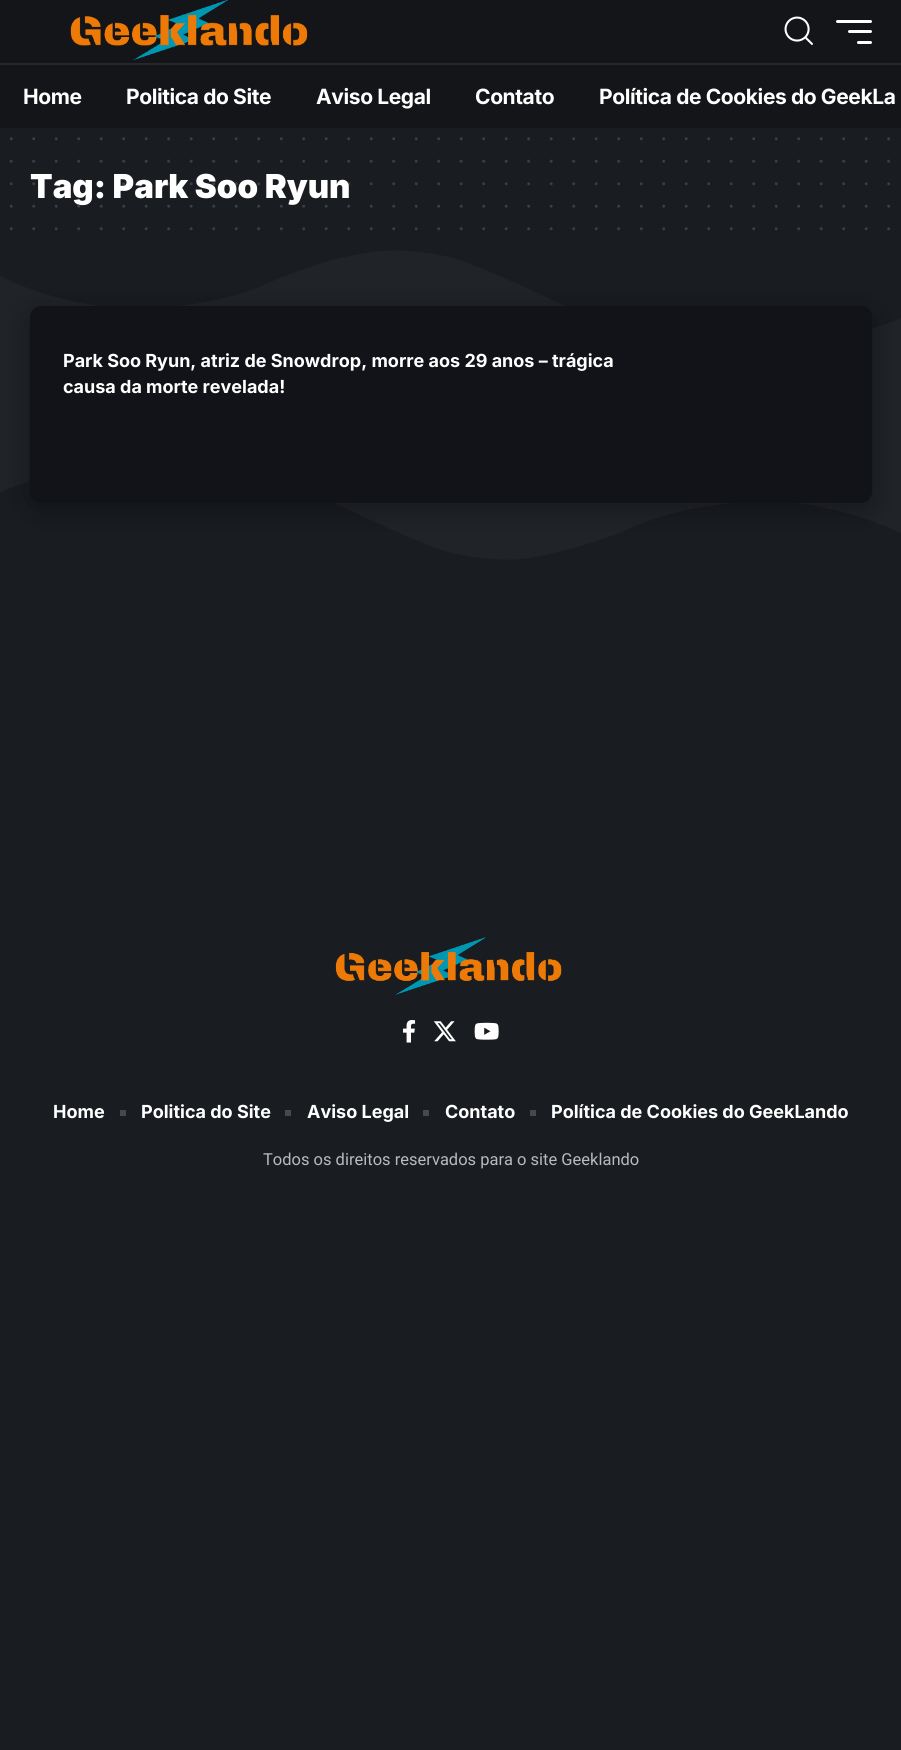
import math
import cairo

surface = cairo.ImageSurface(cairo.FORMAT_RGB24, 901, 1750)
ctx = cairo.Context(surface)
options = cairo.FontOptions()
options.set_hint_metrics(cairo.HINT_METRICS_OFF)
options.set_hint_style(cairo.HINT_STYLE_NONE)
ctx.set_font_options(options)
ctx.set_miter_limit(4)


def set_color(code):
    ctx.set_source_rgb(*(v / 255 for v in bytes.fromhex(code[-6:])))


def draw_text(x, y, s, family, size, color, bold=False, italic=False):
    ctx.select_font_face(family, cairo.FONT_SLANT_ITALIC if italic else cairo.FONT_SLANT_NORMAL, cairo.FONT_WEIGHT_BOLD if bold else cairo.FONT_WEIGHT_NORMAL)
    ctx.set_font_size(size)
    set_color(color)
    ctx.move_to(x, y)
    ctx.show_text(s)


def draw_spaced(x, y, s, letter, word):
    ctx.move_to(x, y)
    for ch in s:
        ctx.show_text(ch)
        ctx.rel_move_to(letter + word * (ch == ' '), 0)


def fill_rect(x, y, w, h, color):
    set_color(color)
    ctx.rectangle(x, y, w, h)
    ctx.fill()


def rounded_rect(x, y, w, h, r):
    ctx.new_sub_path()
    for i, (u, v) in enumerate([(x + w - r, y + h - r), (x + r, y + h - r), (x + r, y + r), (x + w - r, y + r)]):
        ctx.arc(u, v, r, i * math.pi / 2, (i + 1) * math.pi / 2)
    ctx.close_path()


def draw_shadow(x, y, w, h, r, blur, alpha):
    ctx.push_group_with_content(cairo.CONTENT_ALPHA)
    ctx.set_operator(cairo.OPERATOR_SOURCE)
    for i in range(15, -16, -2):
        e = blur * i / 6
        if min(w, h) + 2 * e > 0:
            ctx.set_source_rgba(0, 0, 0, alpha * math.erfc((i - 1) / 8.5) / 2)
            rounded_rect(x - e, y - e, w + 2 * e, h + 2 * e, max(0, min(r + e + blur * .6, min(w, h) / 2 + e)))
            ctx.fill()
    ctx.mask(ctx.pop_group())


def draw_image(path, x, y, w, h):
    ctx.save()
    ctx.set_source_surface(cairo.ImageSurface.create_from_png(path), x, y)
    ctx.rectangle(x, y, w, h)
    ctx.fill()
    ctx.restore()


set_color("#191c20")
ctx.paint()
fill_rect(0, 0, 901, 128, "#131518")
draw_image("assets/img1.png", 70, 0, 238, 61)
draw_image("assets/img2.png", 784, 16, 29, 29)
set_color("#ffffff")
rounded_rect(836, 20, 36, 3, 1.5)
ctx.fill()
rounded_rect(848, 30, 24, 3, 1.5)
ctx.fill()
rounded_rect(857, 41, 15, 3, 1.5)
ctx.fill()
fill_rect(0, 63, 901, 2, "#26282b")
ctx.select_font_face("Inter", cairo.FONT_SLANT_NORMAL, cairo.FONT_WEIGHT_BOLD)
ctx.set_font_size(21)
set_color("#ffffff")
draw_spaced(23, 104, "Home", -0.4, 0)
draw_spaced(126, 104, "Politica do Site", -0.4, 0)
draw_spaced(316, 104, "Aviso Legal", -0.4, 0)
draw_spaced(475, 104, "Contato", -0.4, 0)
draw_spaced(599, 104, "Política de Cookies do GeekLa", -0.4, 0)
ctx.new_path()
ctx.move_to(11.2, 138.8)
ctx.line_to(889.1, 138.8)
set_color("#3c3e41")
ctx.set_line_width(3)
ctx.set_line_cap(cairo.LINE_CAP_ROUND)
ctx.set_dash([0, 22.5])
ctx.stroke()
ctx.new_path()
ctx.move_to(11.2, 161.2)
ctx.line_to(889.1, 161.2)
ctx.stroke()
draw_text(30, 198, "Tag: Park Soo Ryun", "Inter Black", 33, "#ffffff")
ctx.new_path()
ctx.move_to(11.2, 183.8)
ctx.line_to(889.1, 183.8)
ctx.set_source_rgba(1, 1, 1, 0.15)
ctx.stroke()
ctx.new_path()
ctx.move_to(11.2, 206.2)
ctx.line_to(889.1, 206.2)
set_color("#3c3e41")
ctx.stroke()
ctx.new_path()
ctx.move_to(11.2, 228.8)
ctx.line_to(889.1, 228.8)
ctx.stroke()
fill_rect(0, 250, 901, 310, "#202327")
ctx.save()
ctx.rectangle(0, 245, 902, 105)
ctx.clip()
set_color("#191c20")
ctx.new_path()
ctx.move_to(381, 251)
ctx.curve_to(401, 249, 427, 252, 449, 257)
ctx.curve_to(470, 262, 513, 282, 540, 294)
ctx.curve_to(608, 328, 661, 341, 714, 347)
ctx.curve_to(735, 349, 758, 350, 807, 344)
ctx.curve_to(857, 338, 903, 317, 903, 317)
ctx.line_to(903, 244)
ctx.line_to(0, 244)
ctx.line_to(0, 276)
ctx.curve_to(0, 276, 65, 311, 143, 308)
ctx.curve_to(178, 308, 227, 301, 264, 285)
ctx.curve_to(283, 276, 311, 266, 336, 259)
ctx.curve_to(361, 253, 372, 252, 381, 251)
ctx.close_path()
ctx.fill()
ctx.restore()
ctx.save()
ctx.rectangle(0, 459, 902, 105)
ctx.clip()
set_color("#191c20")
ctx.new_path()
ctx.move_to(521, 559)
ctx.curve_to(500, 561, 474, 558, 452, 553)
ctx.curve_to(431, 548, 388, 528, 362, 516)
ctx.curve_to(293, 482, 241, 469, 188, 463)
ctx.curve_to(166, 461, 144, 460, 94, 466)
ctx.curve_to(45, 472, -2, 493, -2, 493)
ctx.line_to(-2, 565)
ctx.line_to(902, 565)
ctx.line_to(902, 534)
ctx.curve_to(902, 534, 837, 499, 759, 502)
ctx.curve_to(723, 502, 675, 509, 638, 525)
ctx.curve_to(618, 534, 590, 544, 566, 550)
ctx.curve_to(541, 557, 530, 558, 521, 559)
ctx.close_path()
ctx.fill()
ctx.restore()
set_color("#000000")
draw_shadow(30, 312, 842, 197, 11, 15, 0.3)
set_color("#111318")
rounded_rect(30, 306, 842, 197, 11)
ctx.fill()
draw_text(63, 367, "Park Soo Ryun, atriz de Snowdrop, morre aos 29 anos – trágica", "Inter", 18, "#ffffff", bold=True)
draw_text(63, 393, "causa da morte revelada!", "Inter", 18, "#ffffff", bold=True)
draw_image("assets/img3.png", 335, 937, 227, 58)
draw_image("assets/img4.png", 403, 1020, 13, 23)
draw_image("assets/img5.png", 433, 1021, 23, 21)
draw_image("assets/img6.png", 474, 1022, 25, 18)
draw_text(53, 1118, "Home", "Inter", 18, "#ffffff", bold=True)
fill_rect(120, 1110, 6, 6, "#47494d")
draw_text(141, 1118, "Politica do Site", "Inter", 18, "#ffffff", bold=True)
fill_rect(285, 1110, 6, 6, "#47494d")
draw_text(307, 1118, "Aviso Legal", "Inter", 18, "#ffffff", bold=True)
fill_rect(423, 1110, 6, 6, "#47494d")
draw_text(445, 1118, "Contato", "Inter", 18, "#ffffff", bold=True)
fill_rect(530, 1110, 6, 6, "#47494d")
draw_text(551, 1118, "Política de Cookies do GeekLando", "Inter", 18, "#ffffff", bold=True)
draw_text(263, 1165, "Todos os direitos reservados para o site Geeklando", "Roboto", 16.5, "#babbbc")
surface.write_to_png("output.png")
